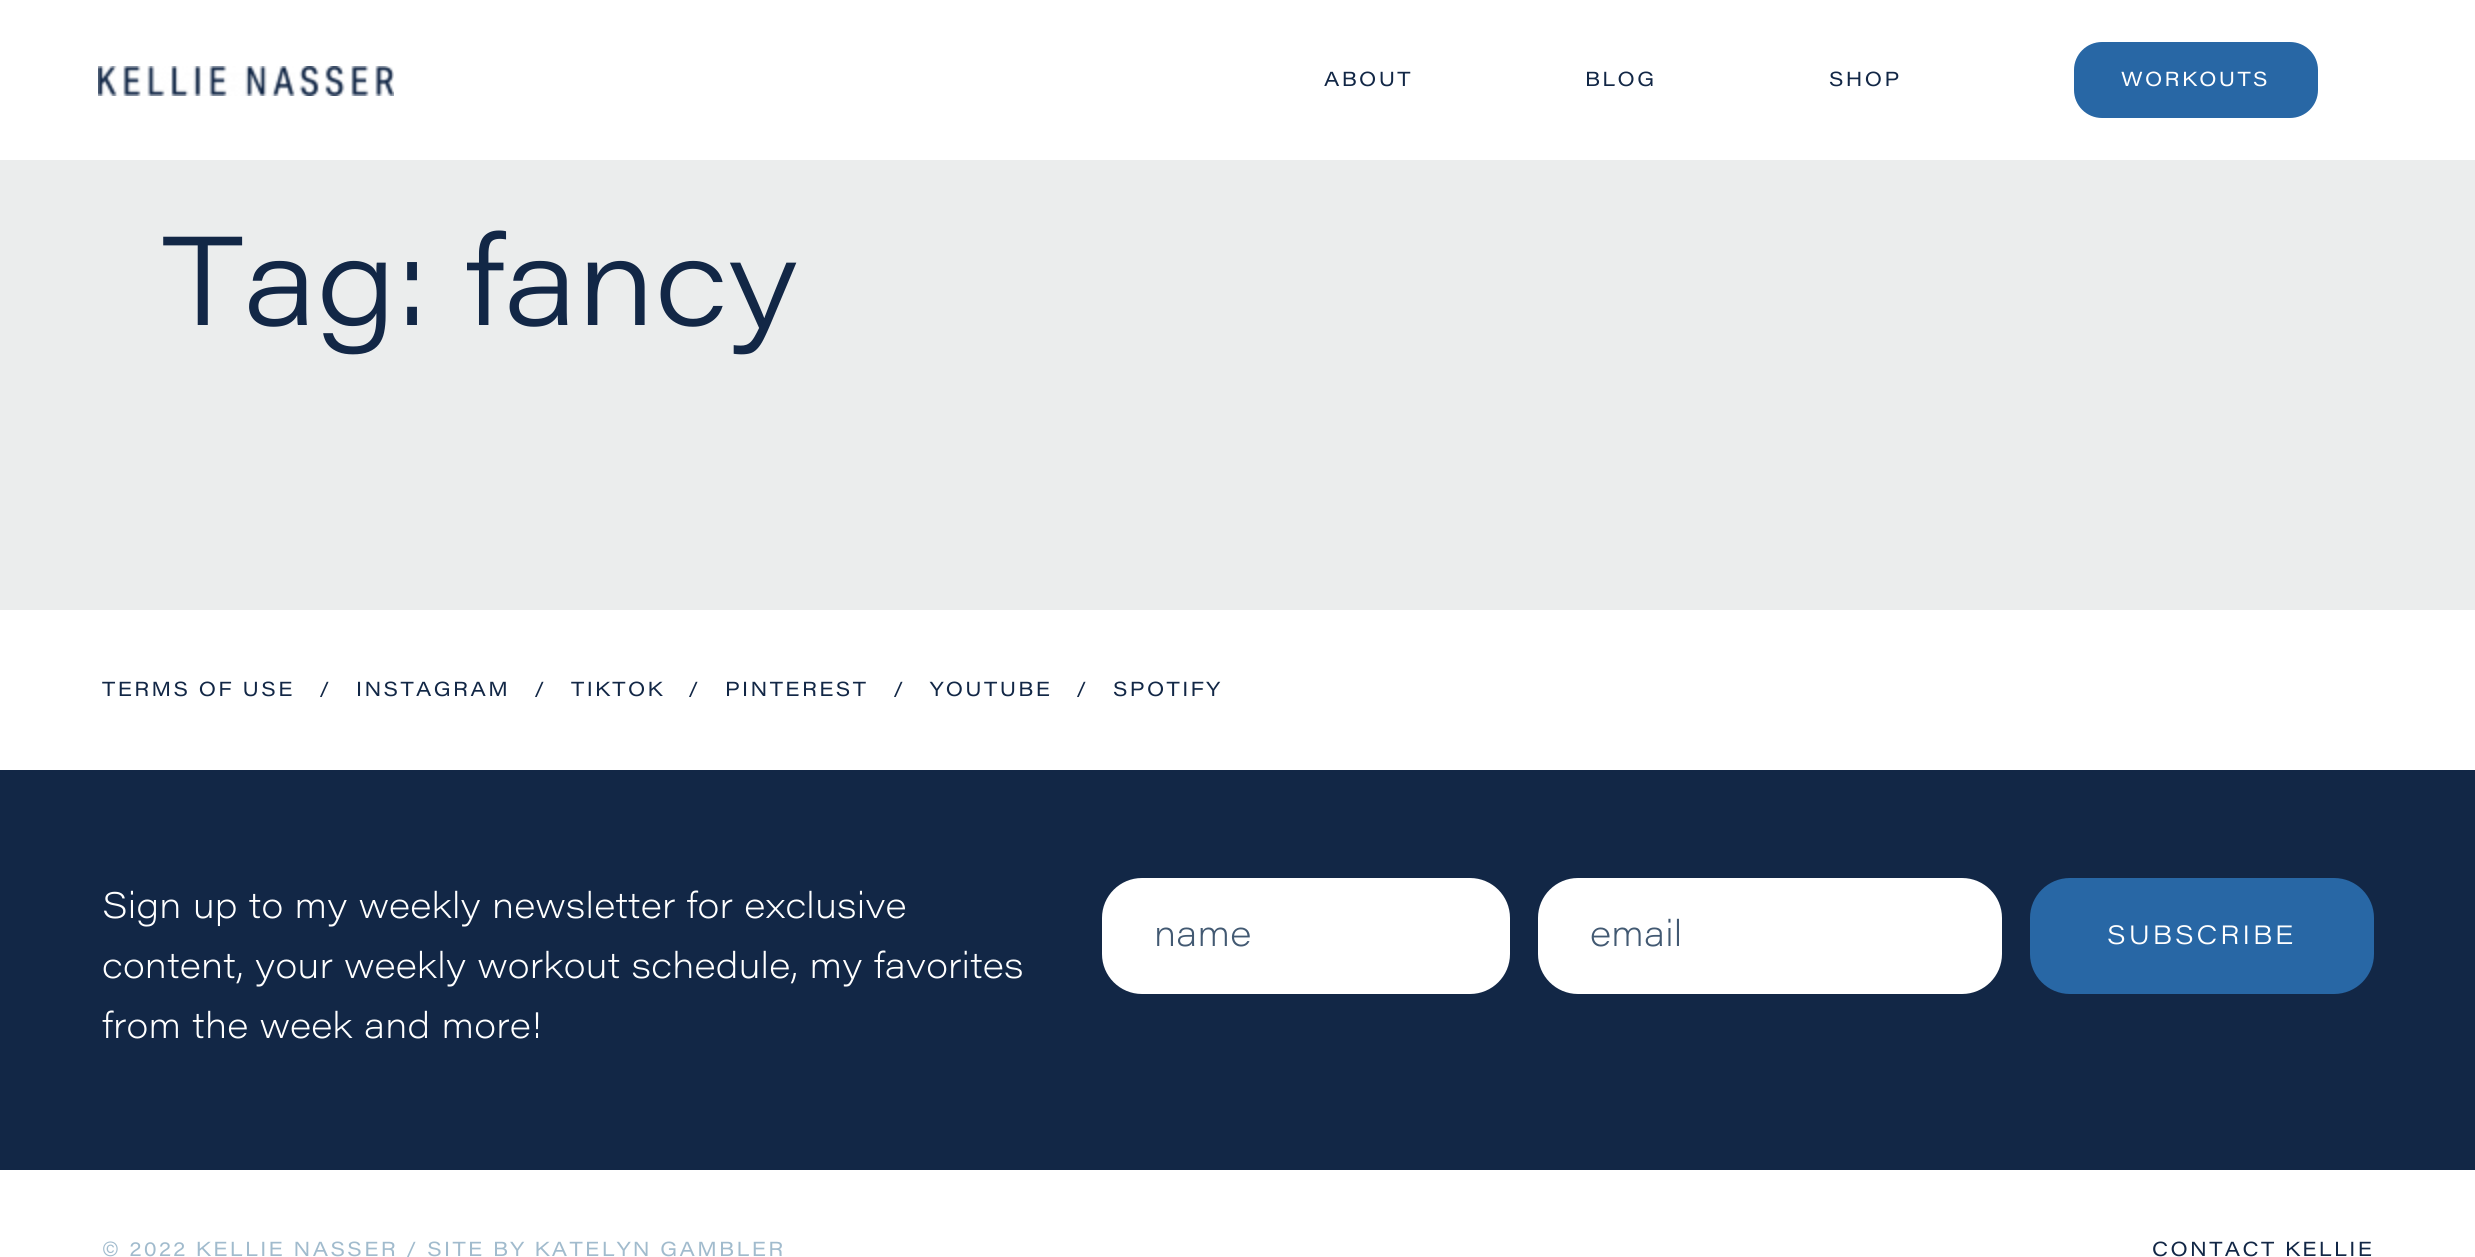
import math
import cairo

surface = cairo.ImageSurface(cairo.FORMAT_RGB24, 2475, 1257)
ctx = cairo.Context(surface)
options = cairo.FontOptions()
options.set_hint_metrics(cairo.HINT_METRICS_OFF)
options.set_hint_style(cairo.HINT_STYLE_NONE)
ctx.set_font_options(options)
ctx.set_miter_limit(4)


def set_color(code):
    ctx.set_source_rgb(*(v / 255 for v in bytes.fromhex(code[-6:])))


def draw_text(x, y, s, family, size, color, bold=False, italic=False):
    ctx.select_font_face(family, cairo.FONT_SLANT_ITALIC if italic else cairo.FONT_SLANT_NORMAL, cairo.FONT_WEIGHT_BOLD if bold else cairo.FONT_WEIGHT_NORMAL)
    ctx.set_font_size(size)
    set_color(color)
    ctx.move_to(x, y)
    ctx.show_text(s)


def draw_spaced(x, y, s, letter, word):
    ctx.move_to(x, y)
    for ch in s:
        ctx.show_text(ch)
        ctx.rel_move_to(letter + word * (ch == ' '), 0)


def fill_rect(x, y, w, h, color):
    set_color(color)
    ctx.rectangle(x, y, w, h)
    ctx.fill()


def rounded_rect(x, y, w, h, r):
    ctx.new_sub_path()
    for i, (u, v) in enumerate([(x + w - r, y + h - r), (x + r, y + h - r), (x + r, y + r), (x + w - r, y + r)]):
        ctx.arc(u, v, r, i * math.pi / 2, (i + 1) * math.pi / 2)
    ctx.close_path()


def draw_image(path, x, y, w, h):
    ctx.save()
    ctx.set_source_surface(cairo.ImageSurface.create_from_png(path), x, y)
    ctx.rectangle(x, y, w, h)
    ctx.fill()
    ctx.restore()


set_color("#ebeded")
ctx.paint()
fill_rect(0, 0, 2475, 160, "#ffffff")
draw_image("assets/img1.png", 98, 66, 296, 30)
ctx.select_font_face("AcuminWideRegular")
ctx.set_font_size(20)
set_color("#122746")
draw_spaced(1324, 86, "ABOUT", 2.4, 0)
draw_spaced(1585, 86, "BLOG", 2.4, 0)
draw_spaced(1829, 86, "SHOP", 2.4, 0)
set_color("#2867a5")
rounded_rect(2074, 42, 244, 76, 28)
ctx.fill()
set_color("#ffffff")
draw_spaced(2121, 86, "WORKOUTS", 2.4, 0)
draw_text(162, 325, "Tag: fancy", "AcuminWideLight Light", 124, "#122746")
fill_rect(0, 610, 2475, 647, "#ffffff")
ctx.select_font_face("AcuminWideRegular")
ctx.set_font_size(20)
set_color("#122746")
draw_spaced(102, 696, "TERMS OF USE", 2.4, 0)
draw_spaced(319, 696, "/", 2.4, 0)
draw_spaced(356, 696, "INSTAGRAM", 2.4, 0)
draw_spaced(534, 696, "/", 2.4, 0)
draw_spaced(571, 696, "TIKTOK", 2.4, 0)
draw_spaced(688, 696, "/", 2.4, 0)
draw_spaced(725, 696, "PINTEREST", 2.4, 0)
draw_spaced(893, 696, "/", 2.4, 0)
draw_spaced(930, 696, "YOUTUBE", 2.4, 0)
draw_spaced(1076, 696, "/", 2.4, 0)
draw_spaced(1113, 696, "SPOTIFY", 2.4, 0)
fill_rect(0, 770, 2475, 400, "#122746")
ctx.select_font_face("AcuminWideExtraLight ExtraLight")
ctx.set_font_size(36)
set_color("#ffffff")
draw_spaced(102, 918, "Sign up to my weekly newsletter for exclusive", 0.2, 0)
draw_spaced(102, 978, "content, your weekly workout schedule, my favorites", 0.2, 0)
draw_spaced(102, 1038, "from the week and more!", 0.2, 0)
rounded_rect(1102, 878, 408, 116, 40)
ctx.fill()
set_color("#425972")
draw_spaced(1154, 946, "name", 0.2, 0)
set_color("#ffffff")
rounded_rect(1538, 878, 464, 116, 40)
ctx.fill()
set_color("#425972")
draw_spaced(1590, 946, "email", 0.2, 0)
set_color("#2867a5")
rounded_rect(2030, 878, 344, 116, 40)
ctx.fill()
ctx.select_font_face("AcuminWideLight Light")
ctx.set_font_size(26)
set_color("#ffffff")
draw_spaced(2107, 944, "SUBSCRIBE", 3, 0)
ctx.select_font_face("AcuminWideRegular")
ctx.set_font_size(20)
set_color("#a1bbcd")
draw_spaced(102, 1256, "© 2022 KELLIE NASSER", 2.4, 0)
draw_spaced(406, 1256, "/ SITE BY KATELYN GAMBLER", 2.4, 0)
set_color("#122746")
draw_spaced(2152, 1256, "CONTACT KELLIE", 2.4, 0)
surface.write_to_png("output.png")
